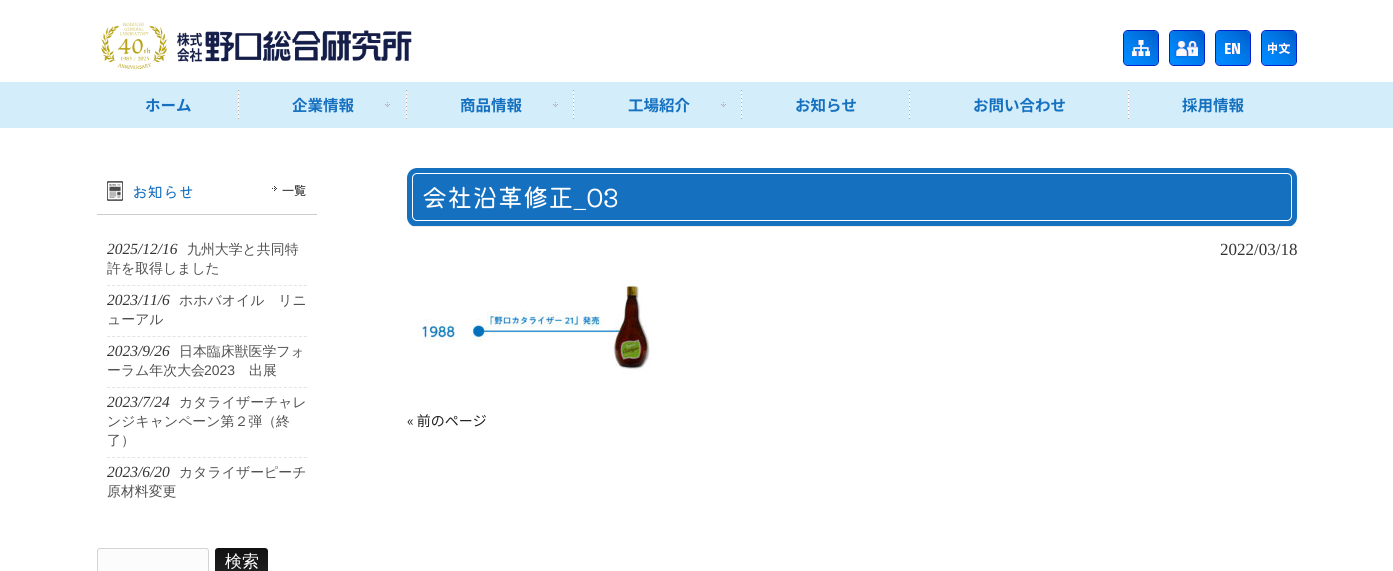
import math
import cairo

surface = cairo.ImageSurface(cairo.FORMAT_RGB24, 1393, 571)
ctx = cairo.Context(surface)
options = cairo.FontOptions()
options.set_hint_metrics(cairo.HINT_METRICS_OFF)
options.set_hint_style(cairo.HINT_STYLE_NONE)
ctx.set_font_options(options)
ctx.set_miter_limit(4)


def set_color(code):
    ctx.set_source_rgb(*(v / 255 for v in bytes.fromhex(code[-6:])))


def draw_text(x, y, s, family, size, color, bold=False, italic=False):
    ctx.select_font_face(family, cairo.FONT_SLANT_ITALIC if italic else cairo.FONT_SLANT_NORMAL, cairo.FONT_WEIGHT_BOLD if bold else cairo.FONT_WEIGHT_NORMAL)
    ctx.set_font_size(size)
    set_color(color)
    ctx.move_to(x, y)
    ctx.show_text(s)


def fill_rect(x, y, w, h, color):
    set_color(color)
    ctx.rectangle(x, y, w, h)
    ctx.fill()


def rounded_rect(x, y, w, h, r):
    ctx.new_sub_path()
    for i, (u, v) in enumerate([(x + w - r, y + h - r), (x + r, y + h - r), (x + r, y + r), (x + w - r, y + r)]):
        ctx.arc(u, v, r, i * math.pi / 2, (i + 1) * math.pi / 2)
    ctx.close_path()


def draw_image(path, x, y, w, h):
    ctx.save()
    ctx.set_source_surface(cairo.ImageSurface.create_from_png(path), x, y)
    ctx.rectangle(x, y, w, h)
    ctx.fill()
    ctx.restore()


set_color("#ffffff")
ctx.paint()
draw_image("assets/img1.png", 101, 22, 311, 48)
draw_image("assets/img2.png", 1123, 30, 36, 36)
draw_image("assets/img3.png", 1169, 30, 36, 36)
draw_image("assets/img4.png", 1215, 30, 36, 36)
draw_image("assets/img5.png", 1261, 30, 36, 36)
fill_rect(0, 82, 1393, 46, "#d3edfb")
draw_image("assets/img6.png", 238, 90, 1, 29)
draw_text(145, 111, "ホーム", "Noto Sans JP", 15.5, "#1570bf", bold=True)
draw_image("assets/img7.png", 385, 90, 22, 29)
draw_text(292, 111, "企業情報", "Noto Sans JP", 15.5, "#1570bf", bold=True)
draw_image("assets/img8.png", 553, 90, 21, 29)
draw_text(460, 111, "商品情報", "Noto Sans JP", 15.5, "#1570bf", bold=True)
draw_image("assets/img8.png", 721, 90, 21, 29)
draw_text(628, 111, "工場紹介", "Noto Sans JP", 15.5, "#1570bf", bold=True)
draw_image("assets/img6.png", 909, 90, 1, 29)
draw_text(795, 111, "お知らせ", "Noto Sans JP", 15.5, "#1570bf", bold=True)
draw_image("assets/img6.png", 1128, 90, 1, 29)
draw_text(973, 111, "お問い合わせ", "Noto Sans JP", 15.5, "#1570bf", bold=True)
draw_text(1182, 111, "採用情報", "Noto Sans JP", 15.5, "#1570bf", bold=True)
fill_rect(97, 214, 220, 1, "#cccccc")
draw_image("assets/img9.png", 107, 181, 16, 20)
draw_text(132, 198, "お知らせ", "Kiwi Maru", 15.5, "#1570bf")
draw_image("assets/img10.png", 272, 186, 5, 5)
draw_text(282, 195, "一覧", "Noto Sans JP", 12, "#222222")
ctx.new_path()
ctx.move_to(107, 285.5)
ctx.line_to(307, 285.5)
set_color("#e4e4e4")
ctx.set_line_width(1)
ctx.set_dash([3, 2.05])
ctx.stroke()
draw_text(107, 254, "2025/12/16", "Liberation Serif", 15.5, "#333333", italic=True)
draw_text(187, 254, "九州大学と共同特", "WenQuanYi Zen Hei Medium", 13.9, "#515151")
draw_text(107, 273, "許を取得しました", "WenQuanYi Zen Hei Medium", 13.9, "#515151")
ctx.new_path()
ctx.move_to(107, 336.5)
ctx.line_to(307, 336.5)
set_color("#e4e4e4")
ctx.stroke()
draw_text(107, 305, "2023/11/6", "Liberation Serif", 15.5, "#333333", italic=True)
draw_text(179, 305, "ホホバオイル　リニ", "WenQuanYi Zen Hei Medium", 13.9, "#515151")
draw_text(107, 324, "ューアル", "WenQuanYi Zen Hei Medium", 13.9, "#515151")
ctx.new_path()
ctx.move_to(107, 387.5)
ctx.line_to(307, 387.5)
set_color("#e4e4e4")
ctx.stroke()
draw_text(107, 356, "2023/9/26", "Liberation Serif", 15.5, "#333333", italic=True)
draw_text(179, 356, "日本臨床獣医学フォ", "WenQuanYi Zen Hei Medium", 13.9, "#515151")
draw_text(107, 375, "ーラム年次大会", "WenQuanYi Zen Hei Medium", 13.9, "#515151")
draw_text(204, 375, "2023", "Liberation Sans", 13.9, "#515151")
draw_text(249, 375, "出展", "WenQuanYi Zen Hei Medium", 13.9, "#515151")
ctx.new_path()
ctx.move_to(107, 457.5)
ctx.line_to(307, 457.5)
set_color("#e4e4e4")
ctx.stroke()
draw_text(107, 407, "2023/7/24", "Liberation Serif", 15.5, "#333333", italic=True)
draw_text(179, 407, "カタライザーチャレ", "WenQuanYi Zen Hei Medium", 13.9, "#515151")
draw_text(107, 426, "ンジキャンペーン第２弾（終", "WenQuanYi Zen Hei Medium", 13.9, "#515151")
draw_text(107, 445, "了）", "WenQuanYi Zen Hei Medium", 13.9, "#515151")
draw_text(107, 477, "2023/6/20", "Liberation Serif", 15.5, "#333333", italic=True)
draw_text(179, 477, "カタライザーピーチ", "WenQuanYi Zen Hei Medium", 13.9, "#515151")
draw_text(107, 496, "原材料変更", "WenQuanYi Zen Hei Medium", 13.9, "#515151")
set_color("#fcfcfc")
rounded_rect(97.5, 548.5, 111, 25, 2.5)
ctx.fill_preserve()
set_color("#d4d4d7")
ctx.set_dash([])
ctx.stroke()
gradient = cairo.LinearGradient(242, 548, 242, 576)
gradient.add_color_stop_rgba(0, 0.067, 0.067, 0.067, 1)
gradient.add_color_stop_rgba(1, 0.133, 0.133, 0.133, 1)
ctx.set_source(gradient)
rounded_rect(215, 548, 53, 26, 3)
ctx.fill()
draw_text(225, 567, "検索", "WenQuanYi Zen Hei Medium", 17, "#ffffff")
set_color("#1570bf")
rounded_rect(407, 168, 890, 59, 10)
ctx.fill()
fill_rect(412, 226, 880, 1, "#eeeeee")
rounded_rect(412.5, 173.5, 879, 47, 4.5)
set_color("#ffffff")
ctx.stroke()
draw_text(422, 207, "会社沿革修正_03", "Kiwi Maru", 25.25, "#ffffff")
draw_text(1220, 255, "2022/03/18", "Liberation Serif", 17, "#333333")
draw_image("assets/img11.png", 415, 279, 237, 94)
draw_text(407, 426, "« 前のページ", "Noto Sans JP", 14, "#222222")
surface.write_to_png("output.png")
